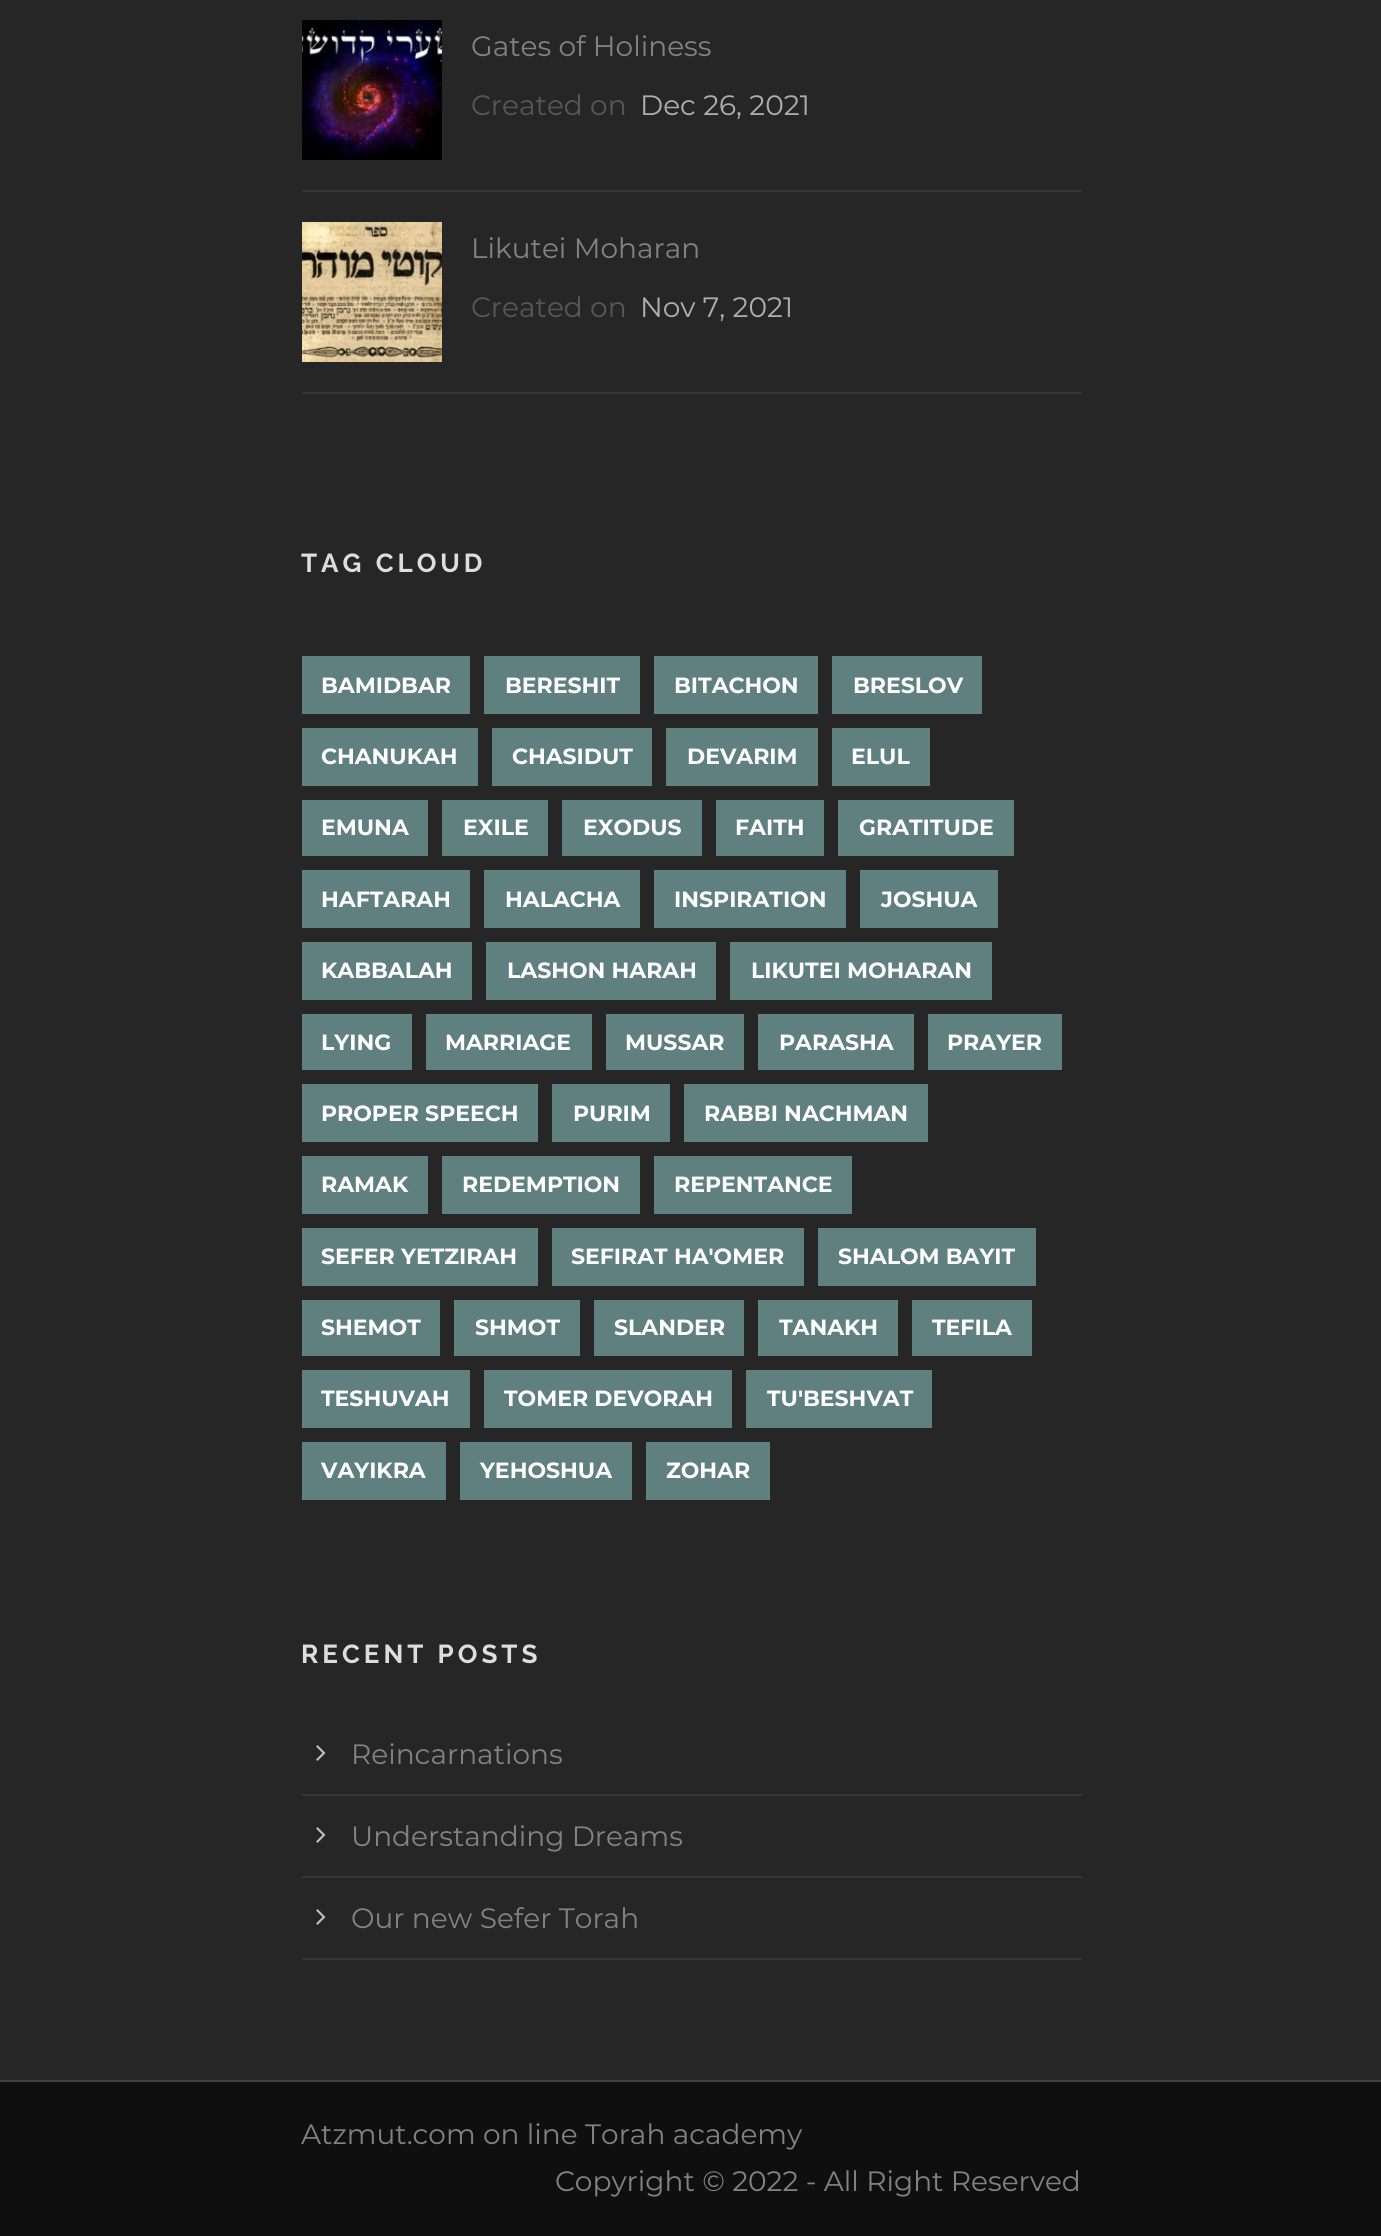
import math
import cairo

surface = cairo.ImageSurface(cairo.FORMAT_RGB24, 1381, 2236)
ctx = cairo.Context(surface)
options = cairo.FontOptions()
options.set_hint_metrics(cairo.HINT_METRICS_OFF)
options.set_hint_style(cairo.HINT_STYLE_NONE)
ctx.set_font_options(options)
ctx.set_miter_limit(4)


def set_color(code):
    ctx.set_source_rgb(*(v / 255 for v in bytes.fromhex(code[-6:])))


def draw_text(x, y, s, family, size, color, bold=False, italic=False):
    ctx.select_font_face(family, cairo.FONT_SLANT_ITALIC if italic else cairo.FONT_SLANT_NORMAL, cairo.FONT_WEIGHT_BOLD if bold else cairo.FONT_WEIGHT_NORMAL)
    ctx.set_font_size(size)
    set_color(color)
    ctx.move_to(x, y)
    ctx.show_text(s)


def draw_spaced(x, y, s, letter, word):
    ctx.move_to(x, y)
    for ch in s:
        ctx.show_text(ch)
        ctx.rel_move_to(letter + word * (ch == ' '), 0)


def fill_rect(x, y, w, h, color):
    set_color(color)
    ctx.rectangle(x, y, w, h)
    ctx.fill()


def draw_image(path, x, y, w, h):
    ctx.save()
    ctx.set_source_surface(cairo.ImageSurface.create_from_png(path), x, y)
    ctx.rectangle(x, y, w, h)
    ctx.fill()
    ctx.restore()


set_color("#262626")
ctx.paint()
fill_rect(302, 190, 780, 2, "#363636")
draw_image("assets/img1.png", 302, 20, 140, 140)
draw_text(471, 56, "Gates of Holiness", "Montserrat", 28, "#828282")
draw_text(471, 115, "Created on", "Montserrat", 28, "#575757")
draw_text(640, 115, "Dec 26, 2021", "Montserrat", 28, "#aeaeae")
fill_rect(302, 392, 780, 2, "#363636")
draw_image("assets/img2.png", 302, 222, 140, 140)
draw_text(471, 258, "Likutei Moharan", "Montserrat", 28, "#828282")
draw_text(471, 317, "Created on", "Montserrat", 28, "#575757")
draw_text(640, 317, "Nov 7, 2021", "Montserrat", 28, "#aeaeae")
ctx.select_font_face("Raleway", cairo.FONT_SLANT_NORMAL, cairo.FONT_WEIGHT_BOLD)
ctx.set_font_size(26)
set_color("#dddddd")
draw_spaced(301, 572, "TAG CLOUD", 4, 0)
fill_rect(302, 656, 168, 58, "#608080")
draw_text(321, 693, "BAMIDBAR", "Montserrat", 22, "#ffffff", bold=True)
fill_rect(484, 656, 156, 58, "#608080")
draw_text(505, 693, "BERESHIT", "Montserrat", 22, "#ffffff", bold=True)
fill_rect(654, 656, 164, 58, "#608080")
draw_text(674, 693, "BITACHON", "Montserrat", 22, "#ffffff", bold=True)
fill_rect(832, 656, 150, 58, "#608080")
draw_text(853, 693, "BRESLOV", "Montserrat", 22, "#ffffff", bold=True)
fill_rect(302, 728, 176, 58, "#608080")
draw_text(321, 764, "CHANUKAH", "Montserrat", 22, "#ffffff", bold=True)
fill_rect(492, 728, 160, 58, "#608080")
draw_text(512, 764, "CHASIDUT", "Montserrat", 22, "#ffffff", bold=True)
fill_rect(666, 728, 152, 58, "#608080")
draw_text(687, 764, "DEVARIM", "Montserrat", 22, "#ffffff", bold=True)
fill_rect(832, 728, 98, 58, "#608080")
draw_text(851, 764, "ELUL", "Montserrat", 22, "#ffffff", bold=True)
fill_rect(302, 800, 126, 56, "#608080")
draw_text(321, 835, "EMUNA", "Montserrat", 22, "#ffffff", bold=True)
fill_rect(442, 800, 106, 56, "#608080")
draw_text(463, 835, "EXILE", "Montserrat", 22, "#ffffff", bold=True)
fill_rect(562, 800, 140, 56, "#608080")
draw_text(583, 835, "EXODUS", "Montserrat", 22, "#ffffff", bold=True)
fill_rect(716, 800, 108, 56, "#608080")
draw_text(735, 835, "FAITH", "Montserrat", 22, "#ffffff", bold=True)
fill_rect(838, 800, 176, 56, "#608080")
draw_text(859, 835, "GRATITUDE", "Montserrat", 22, "#ffffff", bold=True)
fill_rect(302, 870, 168, 58, "#608080")
draw_text(321, 907, "HAFTARAH", "Montserrat", 22, "#ffffff", bold=True)
fill_rect(484, 870, 156, 58, "#608080")
draw_text(505, 907, "HALACHA", "Montserrat", 22, "#ffffff", bold=True)
fill_rect(654, 870, 192, 58, "#608080")
draw_text(674, 907, "INSPIRATION", "Montserrat", 22, "#ffffff", bold=True)
fill_rect(860, 870, 138, 58, "#608080")
draw_text(881, 907, "JOSHUA", "Montserrat", 22, "#ffffff", bold=True)
fill_rect(302, 942, 170, 58, "#608080")
draw_text(321, 978, "KABBALAH", "Montserrat", 22, "#ffffff", bold=True)
fill_rect(486, 942, 230, 58, "#608080")
draw_text(507, 978, "LASHON HARAH", "Montserrat", 22, "#ffffff", bold=True)
fill_rect(730, 942, 262, 58, "#608080")
draw_text(751, 978, "LIKUTEI MOHARAN", "Montserrat", 22, "#ffffff", bold=True)
fill_rect(302, 1014, 110, 56, "#608080")
draw_text(321, 1050, "LYING", "Montserrat", 22, "#ffffff", bold=True)
fill_rect(426, 1014, 166, 56, "#608080")
draw_text(445, 1050, "MARRIAGE", "Montserrat", 22, "#ffffff", bold=True)
fill_rect(606, 1014, 138, 56, "#608080")
draw_text(625, 1050, "MUSSAR", "Montserrat", 22, "#ffffff", bold=True)
fill_rect(758, 1014, 156, 56, "#608080")
draw_text(779, 1050, "PARASHA", "Montserrat", 22, "#ffffff", bold=True)
fill_rect(928, 1014, 134, 56, "#608080")
draw_text(947, 1050, "PRAYER", "Montserrat", 22, "#ffffff", bold=True)
fill_rect(302, 1084, 236, 58, "#608080")
draw_text(321, 1121, "PROPER SPEECH", "Montserrat", 22, "#ffffff", bold=True)
fill_rect(552, 1084, 118, 58, "#608080")
draw_text(573, 1121, "PURIM", "Montserrat", 22, "#ffffff", bold=True)
fill_rect(684, 1084, 244, 58, "#608080")
draw_text(704, 1121, "RABBI NACHMAN", "Montserrat", 22, "#ffffff", bold=True)
fill_rect(302, 1156, 126, 58, "#608080")
draw_text(321, 1192, "RAMAK", "Montserrat", 22, "#ffffff", bold=True)
fill_rect(442, 1156, 198, 58, "#608080")
draw_text(462, 1192, "REDEMPTION", "Montserrat", 22, "#ffffff", bold=True)
fill_rect(654, 1156, 198, 58, "#608080")
draw_text(674, 1192, "REPENTANCE", "Montserrat", 22, "#ffffff", bold=True)
fill_rect(302, 1228, 236, 58, "#608080")
draw_text(321, 1264, "SEFER YETZIRAH", "Montserrat", 22, "#ffffff", bold=True)
fill_rect(552, 1228, 252, 58, "#608080")
draw_text(571, 1264, "SEFIRAT HA'OMER", "Montserrat", 22, "#ffffff", bold=True)
fill_rect(818, 1228, 218, 58, "#608080")
draw_text(838, 1264, "SHALOM BAYIT", "Montserrat", 22, "#ffffff", bold=True)
fill_rect(302, 1300, 138, 56, "#608080")
draw_text(321, 1335, "SHEMOT", "Montserrat", 22, "#ffffff", bold=True)
fill_rect(454, 1300, 126, 56, "#608080")
draw_text(475, 1335, "SHMOT", "Montserrat", 22, "#ffffff", bold=True)
fill_rect(594, 1300, 150, 56, "#608080")
draw_text(614, 1335, "SLANDER", "Montserrat", 22, "#ffffff", bold=True)
fill_rect(758, 1300, 140, 56, "#608080")
draw_text(779, 1335, "TANAKH", "Montserrat", 22, "#ffffff", bold=True)
fill_rect(912, 1300, 120, 56, "#608080")
draw_text(932, 1335, "TEFILA", "Montserrat", 22, "#ffffff", bold=True)
fill_rect(302, 1370, 168, 58, "#608080")
draw_text(321, 1406, "TESHUVAH", "Montserrat", 22, "#ffffff", bold=True)
fill_rect(484, 1370, 248, 58, "#608080")
draw_text(504, 1406, "TOMER DEVORAH", "Montserrat", 22, "#ffffff", bold=True)
fill_rect(746, 1370, 186, 58, "#608080")
draw_text(767, 1406, "TU'BESHVAT", "Montserrat", 22, "#ffffff", bold=True)
fill_rect(302, 1442, 144, 58, "#608080")
draw_text(321, 1478, "VAYIKRA", "Montserrat", 22, "#ffffff", bold=True)
fill_rect(460, 1442, 172, 58, "#608080")
draw_text(480, 1478, "YEHOSHUA", "Montserrat", 22, "#ffffff", bold=True)
fill_rect(646, 1442, 124, 58, "#608080")
draw_text(666, 1478, "ZOHAR", "Montserrat", 22, "#ffffff", bold=True)
ctx.select_font_face("Raleway", cairo.FONT_SLANT_NORMAL, cairo.FONT_WEIGHT_BOLD)
ctx.set_font_size(26)
set_color("#dddddd")
draw_spaced(301, 1663, "RECENT POSTS", 4, 0)
fill_rect(302, 1794, 780, 2, "#363636")
draw_image("assets/img3.png", 316, 1745, 10, 16)
draw_text(351, 1764, "Reincarnations", "Montserrat", 28, "#828282")
fill_rect(302, 1876, 780, 2, "#363636")
draw_image("assets/img3.png", 316, 1827, 10, 16)
draw_text(351, 1846, "Understanding Dreams", "Montserrat", 28, "#828282")
fill_rect(302, 1958, 780, 2, "#363636")
draw_image("assets/img3.png", 316, 1909, 10, 16)
draw_text(351, 1928, "Our new Sefer Torah", "Montserrat", 28, "#828282")
fill_rect(0, 2082, 1381, 154, "#0f0f0f")
fill_rect(0, 2080, 1381, 2, "#3f3f3f")
draw_text(301, 2144, "Atzmut.com on line Torah academy", "Montserrat", 28, "#828282")
draw_text(555, 2191, "Copyright © 2022 - All Right Reserved", "Montserrat", 28, "#828282")
surface.write_to_png("output.png")
